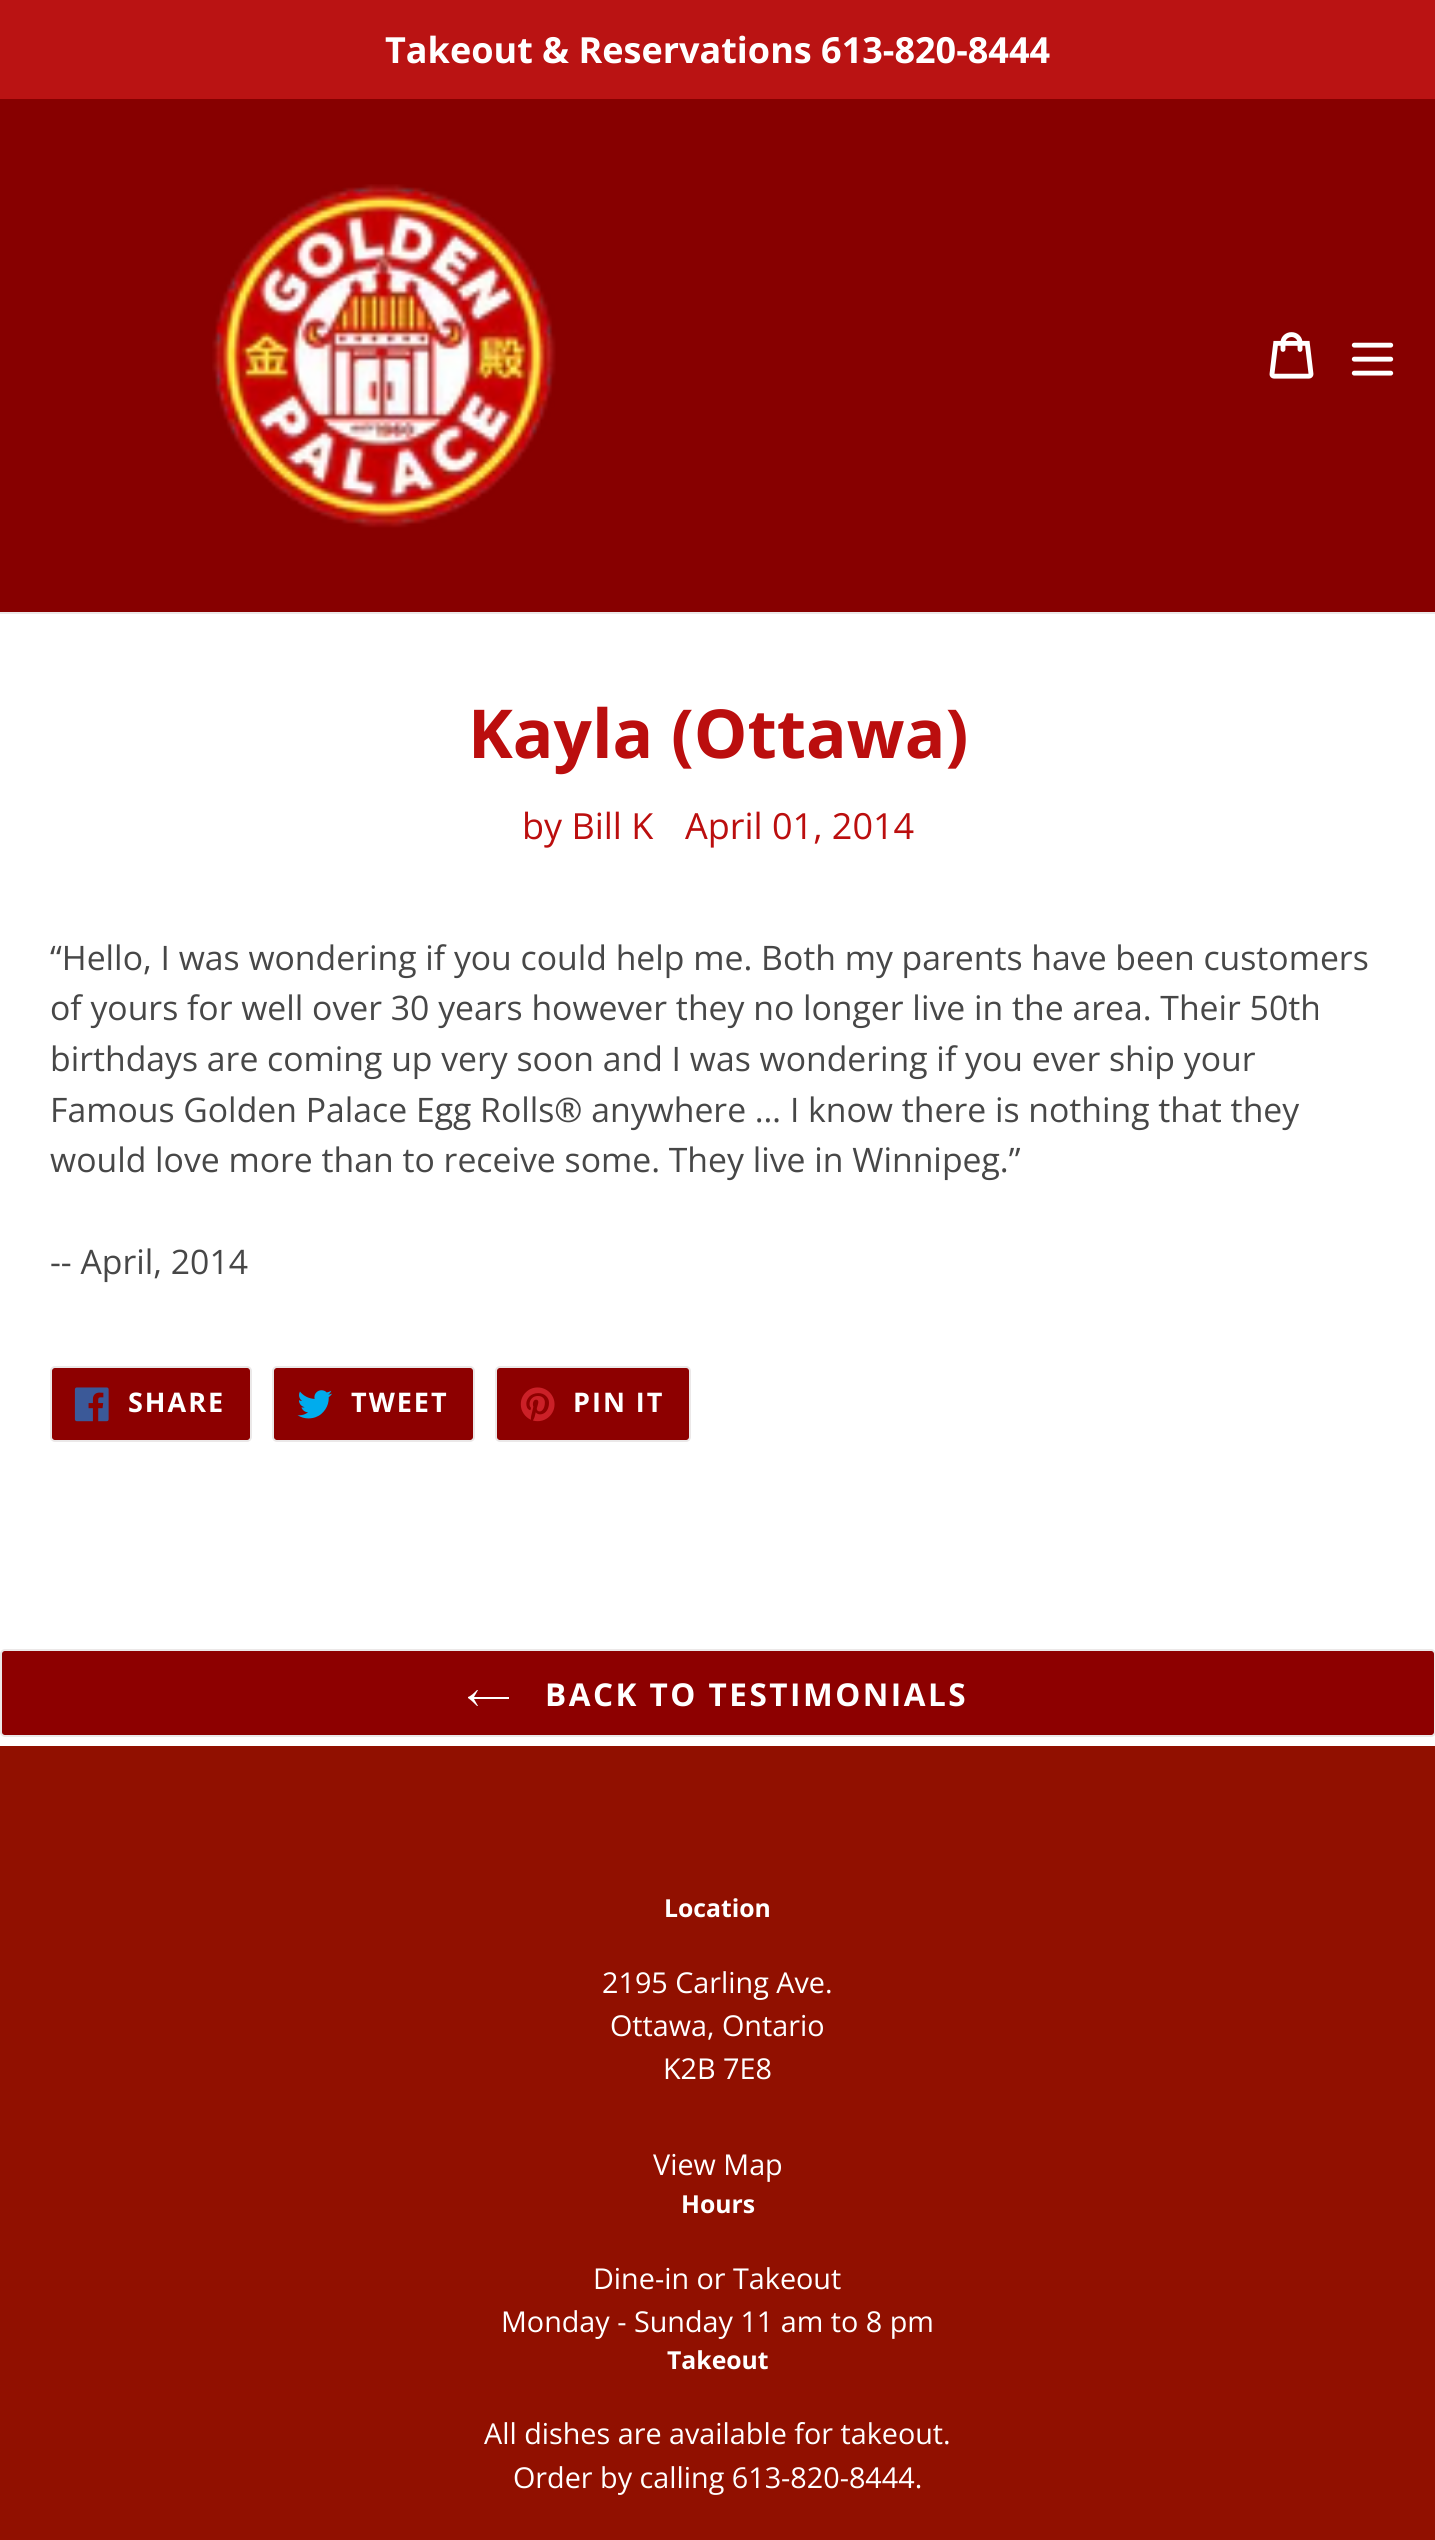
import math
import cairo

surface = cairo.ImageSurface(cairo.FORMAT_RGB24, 1435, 2540)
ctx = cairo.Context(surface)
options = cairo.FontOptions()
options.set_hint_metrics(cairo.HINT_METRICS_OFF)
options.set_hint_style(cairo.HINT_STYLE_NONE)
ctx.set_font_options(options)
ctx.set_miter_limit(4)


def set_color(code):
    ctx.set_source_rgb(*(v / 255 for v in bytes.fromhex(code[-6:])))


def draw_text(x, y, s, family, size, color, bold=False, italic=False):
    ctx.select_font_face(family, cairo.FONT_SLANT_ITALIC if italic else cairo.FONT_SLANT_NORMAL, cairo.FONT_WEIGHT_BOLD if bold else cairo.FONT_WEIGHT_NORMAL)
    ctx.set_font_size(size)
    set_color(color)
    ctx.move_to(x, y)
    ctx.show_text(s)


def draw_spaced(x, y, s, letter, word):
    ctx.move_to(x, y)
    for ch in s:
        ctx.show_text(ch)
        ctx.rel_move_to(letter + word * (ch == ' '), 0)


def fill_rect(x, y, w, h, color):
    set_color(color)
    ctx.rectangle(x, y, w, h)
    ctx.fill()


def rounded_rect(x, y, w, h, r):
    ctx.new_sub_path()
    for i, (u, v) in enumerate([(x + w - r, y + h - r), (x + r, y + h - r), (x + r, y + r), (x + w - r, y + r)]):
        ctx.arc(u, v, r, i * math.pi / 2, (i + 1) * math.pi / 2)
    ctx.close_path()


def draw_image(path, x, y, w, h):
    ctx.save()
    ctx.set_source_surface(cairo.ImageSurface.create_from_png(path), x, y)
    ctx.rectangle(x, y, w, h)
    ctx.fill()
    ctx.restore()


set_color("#ffffff")
ctx.paint()
fill_rect(0, 0, 1435, 99, "#ba1313")
draw_text(385, 63, "Takeout & Reservations 613-820-8444", "Open Sans", 36, "#ffffff", bold=True)
fill_rect(0, 99, 1435, 513, "#870000")
fill_rect(0, 612, 1435, 2, "#ebe8e8")
draw_image("assets/img1.png", 212, 184, 344, 344)
draw_image("assets/img2.png", 1269, 332, 45, 47)
draw_image("assets/img3.png", 1351, 342, 43, 34)
draw_text(468, 758, "Kayla (Ottawa)", "Open Sans", 67.5, "#bb0e0e", bold=True)
draw_text(522, 839, "by Bill K", "Open Sans", 36, "#bb0e0e")
draw_text(685, 839, "April 01, 2014", "Open Sans", 36, "#bb0e0e")
draw_text(50, 970, "“Hello, I was wondering if you could help me. Both my parents have been customers", "Open Sans", 33.75, "#474747")
draw_text(50, 1020, "of yours for well over 30 years however they no longer live in the area. Their 50th", "Open Sans", 33.75, "#474747")
draw_text(50, 1071, "birthdays are coming up very soon and I was wondering if you ever ship your", "Open Sans", 33.75, "#474747")
draw_text(50, 1122, "Famous Golden Palace Egg Rolls® anywhere … I know there is nothing that they", "Open Sans", 33.75, "#474747")
draw_text(50, 1172, "would love more than to receive some. They live in Winnipeg.”", "Open Sans", 33.75, "#474747")
draw_text(50, 1274, "-- April, 2014", "Open Sans", 33.75, "#474747")
set_color("#8d0000")
rounded_rect(51, 1367, 200, 74, 4)
ctx.fill_preserve()
set_color("#ebe8e8")
ctx.stroke()
draw_image("assets/img4.png", 74, 1387, 35, 35)
ctx.select_font_face("Open Sans", cairo.FONT_SLANT_NORMAL, cairo.FONT_WEIGHT_BOLD)
ctx.set_font_size(27)
set_color("#ffffff")
draw_spaced(128, 1412, "SHARE", 2, 0)
set_color("#8d0000")
rounded_rect(273, 1367, 201, 74, 4)
ctx.fill_preserve()
set_color("#ebe8e8")
ctx.stroke()
draw_image("assets/img5.png", 297, 1390, 35, 29)
set_color("#ffffff")
draw_spaced(351, 1412, "TWEET", 2, 0)
set_color("#8d0000")
rounded_rect(496, 1367, 194, 74, 4)
ctx.fill_preserve()
set_color("#ebe8e8")
ctx.stroke()
draw_image("assets/img6.png", 520, 1387, 35, 35)
set_color("#ffffff")
draw_spaced(573, 1412, "PIN IT", 2, 0)
set_color("#8d0000")
rounded_rect(1, 1650, 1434, 86, 4)
ctx.fill_preserve()
set_color("#ebe8e8")
ctx.stroke()
set_color("#ffffff")
ctx.set_fill_rule(cairo.FILL_RULE_EVEN_ODD)
ctx.new_path()
ctx.move_to(477, 1706)
ctx.curve_to(474, 1703, 471, 1700, 468, 1698)
ctx.line_to(468, 1697)
ctx.curve_to(471, 1696, 474, 1693, 477, 1690)
ctx.line_to(478, 1690)
ctx.line_to(474, 1697)
ctx.line_to(509, 1697)
ctx.line_to(509, 1699)
ctx.line_to(474, 1699)
ctx.line_to(478, 1706)
ctx.close_path()
ctx.fill()
ctx.set_font_size(31.5)
draw_spaced(545, 1706, "BACK TO TESTIMONIALS", 2.5, 0)
fill_rect(0, 1746, 1435, 794, "#911000")
draw_text(664, 1917, "Location", "Open Sans", 24.75, "#ffffff", bold=True)
draw_text(602, 1993, "2195 Carling Ave.", "Open Sans", 28.75, "#ffffff")
draw_text(610, 2036, "Ottawa, Ontario", "Open Sans", 28.75, "#ffffff")
draw_text(663, 2079, "K2B 7E8", "Open Sans", 28.75, "#ffffff")
draw_text(653, 2175, "View Map", "Open Sans", 28.75, "#ffffff")
draw_text(681, 2213, "Hours", "Open Sans", 24.75, "#ffffff", bold=True)
draw_text(593, 2289, "Dine-in or Takeout", "Open Sans", 28.75, "#ffffff")
draw_text(501, 2332, "Monday - Sunday 11 am to 8 pm", "Open Sans", 28.75, "#ffffff")
draw_text(667, 2369, "Takeout", "Open Sans", 24.75, "#ffffff", bold=True)
draw_text(484, 2444, "All dishes are available for takeout.", "Open Sans", 28.75, "#ffffff")
draw_text(513, 2488, "Order by calling 613-820-8444.", "Open Sans", 28.75, "#ffffff")
surface.write_to_png("output.png")
